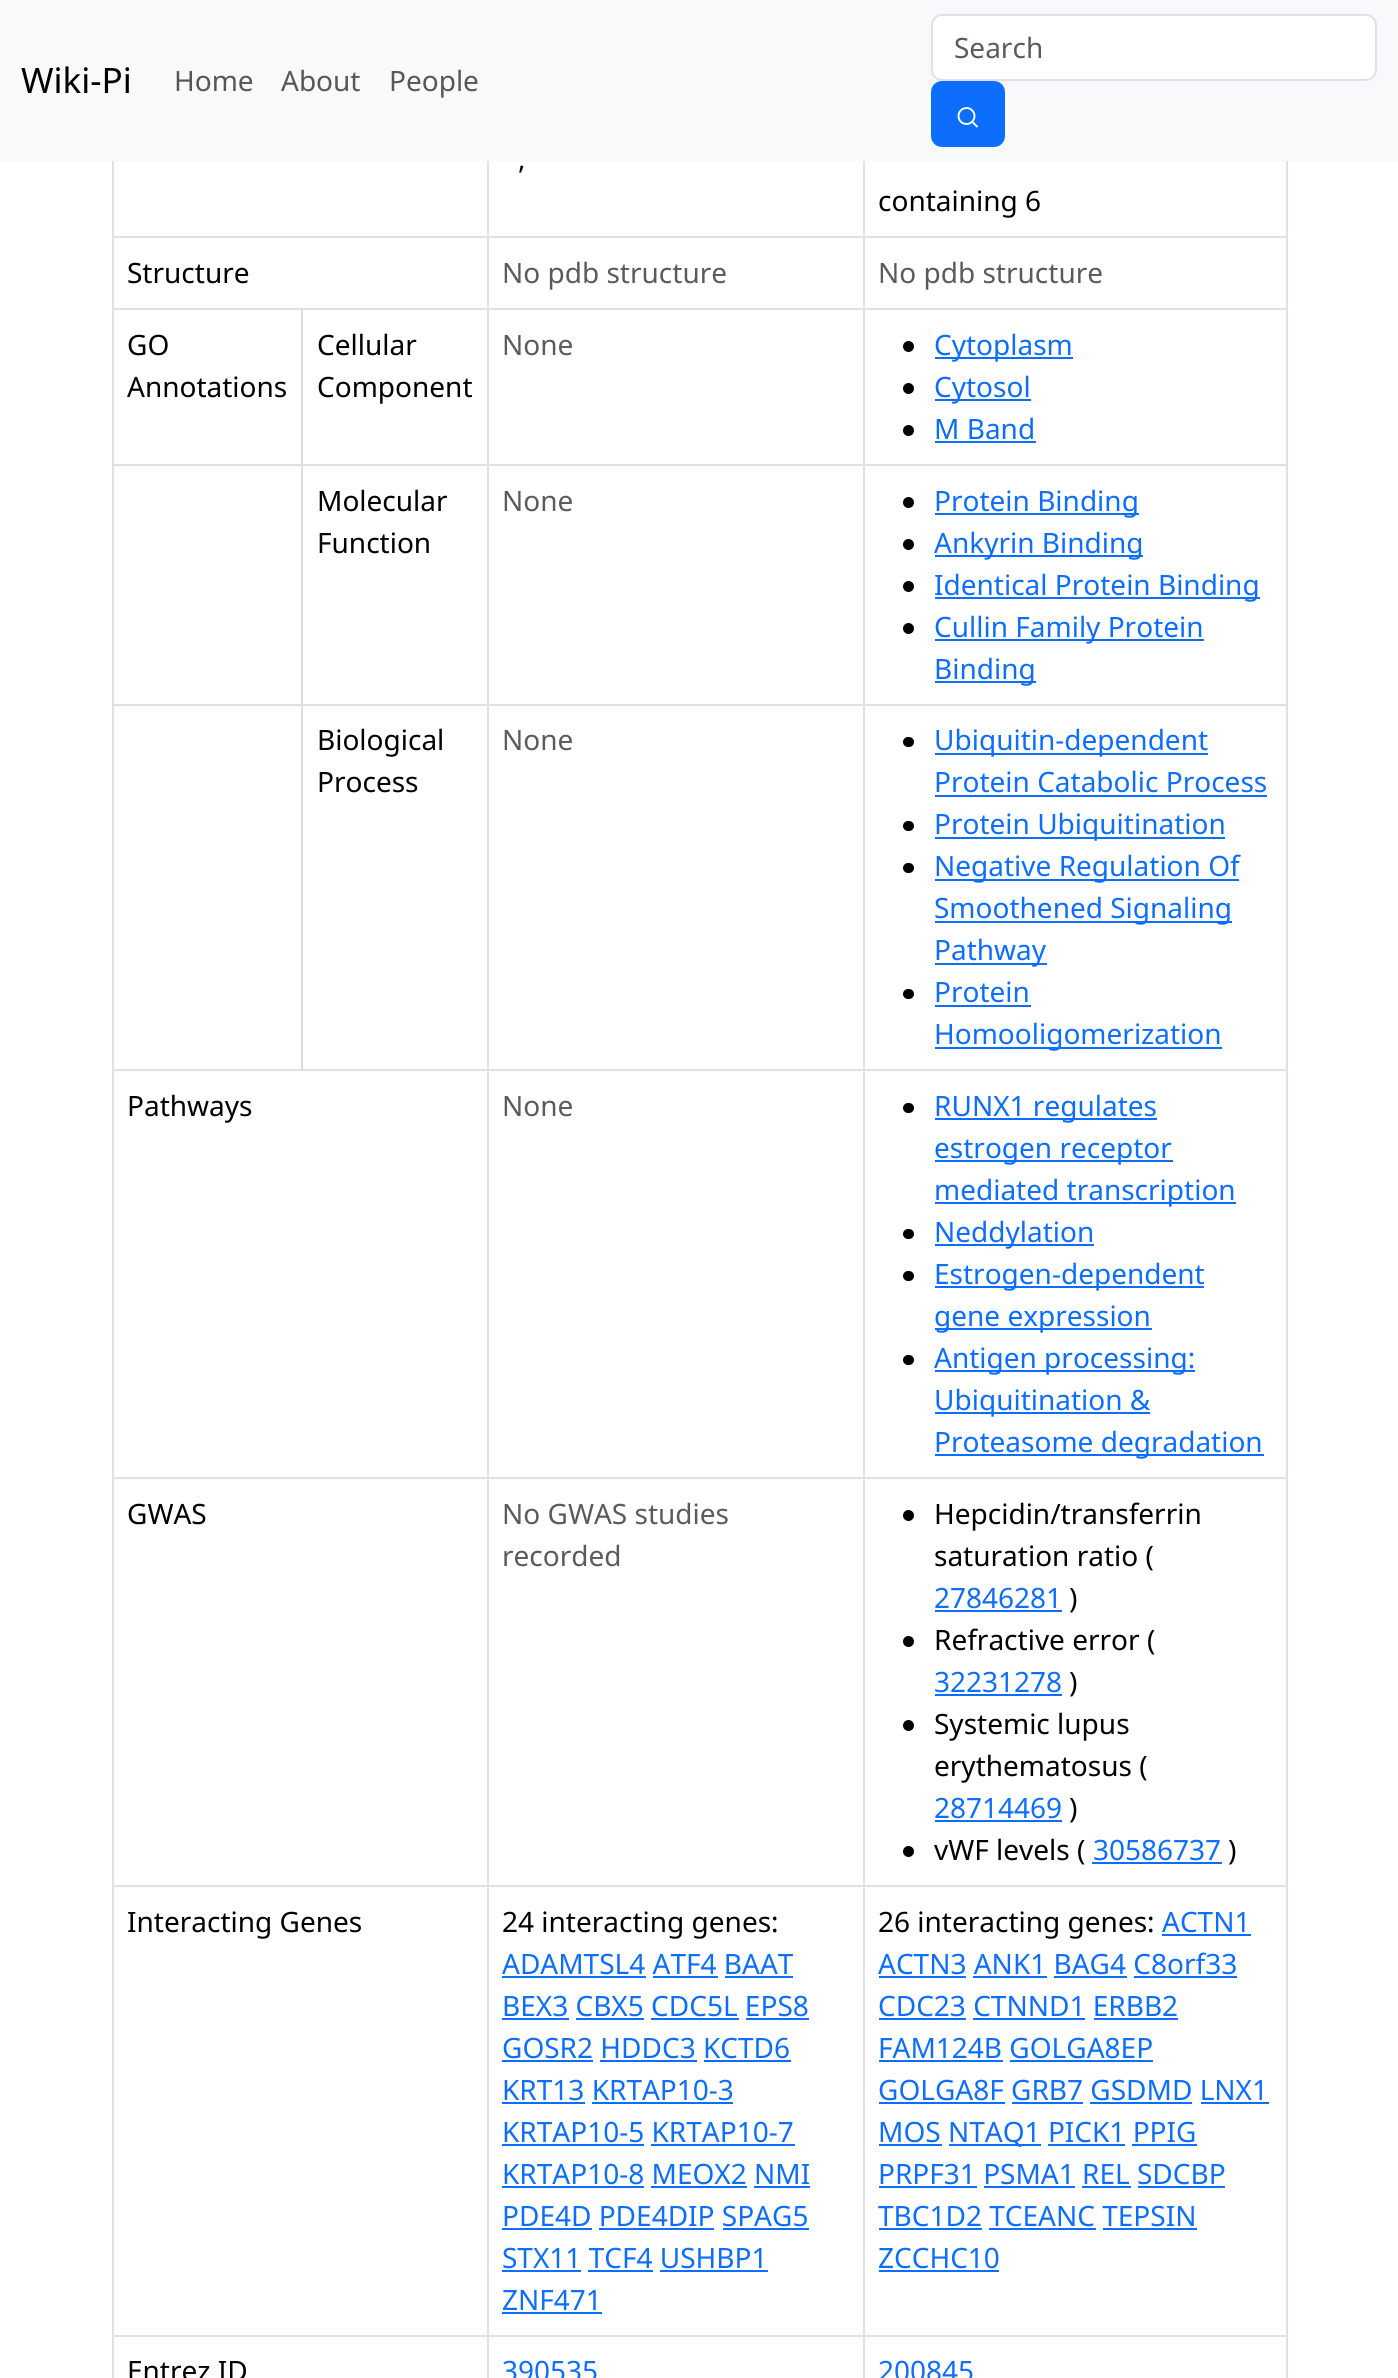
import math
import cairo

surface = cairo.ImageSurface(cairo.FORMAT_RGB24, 1398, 2378)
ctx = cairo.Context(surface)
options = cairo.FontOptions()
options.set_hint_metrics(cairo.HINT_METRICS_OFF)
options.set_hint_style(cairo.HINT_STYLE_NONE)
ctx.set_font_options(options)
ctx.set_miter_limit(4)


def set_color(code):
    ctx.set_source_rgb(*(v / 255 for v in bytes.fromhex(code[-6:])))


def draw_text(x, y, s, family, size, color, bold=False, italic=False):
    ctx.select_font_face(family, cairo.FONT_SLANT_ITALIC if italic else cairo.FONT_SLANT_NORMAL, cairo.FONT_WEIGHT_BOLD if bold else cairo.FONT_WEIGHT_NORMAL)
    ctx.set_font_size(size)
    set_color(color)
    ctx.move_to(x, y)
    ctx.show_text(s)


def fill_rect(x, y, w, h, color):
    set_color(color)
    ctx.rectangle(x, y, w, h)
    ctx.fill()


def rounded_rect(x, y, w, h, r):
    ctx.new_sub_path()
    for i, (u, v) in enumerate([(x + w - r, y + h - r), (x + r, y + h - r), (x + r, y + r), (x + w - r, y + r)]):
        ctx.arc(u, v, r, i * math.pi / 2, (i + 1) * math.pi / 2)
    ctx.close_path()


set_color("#ffffff")
ctx.paint()
fill_rect(0, 0, 1398, 161, "#f8f9fa")
draw_text(21, 93, "Wiki-Pi", "Noto Sans", 35, "#000000")
set_color("#ffffff")
rounded_rect(932, 15, 444, 65, 10)
ctx.fill_preserve()
set_color("#dee2e6")
ctx.stroke()
draw_text(954, 58, "Search", "Noto Sans", 28, "#595c5f")
set_color("#0d6efd")
rounded_rect(932, 82, 72, 64, 10)
ctx.fill_preserve()
ctx.stroke()
ctx.arc(966.5, 116, 8, 0, 2 * math.pi)
set_color("#ffffff")
ctx.set_line_width(1.9)
ctx.stroke()
ctx.new_path()
ctx.move_to(977, 126.5)
ctx.line_to(973, 122.5)
ctx.set_line_cap(cairo.LINE_CAP_ROUND)
ctx.stroke()
draw_text(174, 91, "Home", "Noto Sans", 28, "#575758")
draw_text(281, 91, "About", "Noto Sans", 28, "#575758")
draw_text(389, 91, "People", "Noto Sans", 28, "#575758")
draw_text(518, 169, ",", "Noto Sans", 28, "#000000")
draw_text(878, 211, "containing 6", "Noto Sans", 28, "#000000")
fill_rect(112, 236, 1176, 2, "#dee2e6")
draw_text(127, 283, "Structure", "Noto Sans", 28, "#000000")
draw_text(502, 283, "No pdb structure", "Noto Sans", 28, "#595c5f")
draw_text(878, 283, "No pdb structure", "Noto Sans", 28, "#595c5f")
fill_rect(112, 308, 1176, 2, "#dee2e6")
fill_rect(112, 464, 1176, 2, "#dee2e6")
fill_rect(112, 704, 1176, 2, "#dee2e6")
fill_rect(112, 1069, 1176, 2, "#dee2e6")
fill_rect(301, 308, 2, 763, "#dddddd")
draw_text(127, 355, "GO", "Noto Sans", 28, "#000000")
draw_text(127, 397, "Annotations", "Noto Sans", 28, "#000000")
draw_text(317, 355, "Cellular", "Noto Sans", 28, "#000000")
draw_text(317, 397, "Component", "Noto Sans", 28, "#000000")
draw_text(502, 355, "None", "Noto Sans", 28, "#595c5f")
set_color("#000000")
ctx.new_path()
ctx.arc(908.5, 346.5, 5.5, 0, 2 * math.pi)
ctx.fill()
fill_rect(935, 357, 138, 2, "#0d6efd")
draw_text(934, 355, "Cytoplasm", "Noto Sans", 28, "#0d6efd")
set_color("#000000")
ctx.new_path()
ctx.arc(908.5, 388.5, 5.5, 0, 2 * math.pi)
ctx.fill()
fill_rect(935, 399, 96, 2, "#0d6efd")
draw_text(934, 397, "Cytosol", "Noto Sans", 28, "#0d6efd")
set_color("#000000")
ctx.new_path()
ctx.arc(908.5, 430.5, 5.5, 0, 2 * math.pi)
ctx.fill()
draw_text(934, 439, "M Band", "Noto Sans", 28, "#0d6efd")
fill_rect(935, 441, 101, 2, "#0d6efd")
draw_text(317, 511, "Molecular", "Noto Sans", 28, "#000000")
draw_text(317, 553, "Function", "Noto Sans", 28, "#000000")
draw_text(502, 511, "None", "Noto Sans", 28, "#595c5f")
set_color("#000000")
ctx.new_path()
ctx.arc(908.5, 502.5, 5.5, 0, 2 * math.pi)
ctx.fill()
fill_rect(935, 513, 204, 2, "#0d6efd")
draw_text(934, 511, "Protein Binding", "Noto Sans", 28, "#0d6efd")
set_color("#000000")
ctx.new_path()
ctx.arc(908.5, 544.5, 5.5, 0, 2 * math.pi)
ctx.fill()
fill_rect(935, 555, 208, 2, "#0d6efd")
draw_text(934, 553, "Ankyrin Binding", "Noto Sans", 28, "#0d6efd")
set_color("#000000")
ctx.new_path()
ctx.arc(908.5, 586.5, 5.5, 0, 2 * math.pi)
ctx.fill()
fill_rect(935, 597, 325, 2, "#0d6efd")
draw_text(934, 595, "Identical Protein Binding", "Noto Sans", 28, "#0d6efd")
set_color("#000000")
ctx.new_path()
ctx.arc(908.5, 628.5, 5.5, 0, 2 * math.pi)
ctx.fill()
fill_rect(935, 639, 269, 2, "#0d6efd")
draw_text(934, 637, "Cullin Family Protein", "Noto Sans", 28, "#0d6efd")
fill_rect(935, 681, 101, 2, "#0d6efd")
draw_text(934, 679, "Binding", "Noto Sans", 28, "#0d6efd")
draw_text(317, 750, "Biological", "Noto Sans", 28, "#000000")
draw_text(317, 792, "Process", "Noto Sans", 28, "#000000")
draw_text(502, 750, "None", "Noto Sans", 28, "#595c5f")
set_color("#000000")
rounded_rect(903, 737, 11, 10, 5)
ctx.fill()
fill_rect(935, 753, 273, 2, "#0d6efd")
draw_text(934, 750, "Ubiquitin-dependent", "Noto Sans", 28, "#0d6efd")
draw_text(934, 792, "Protein Catabolic Process", "Noto Sans", 28, "#0d6efd")
fill_rect(935, 795, 332, 2, "#0d6efd")
set_color("#000000")
rounded_rect(903, 821, 11, 10, 5)
ctx.fill()
fill_rect(935, 837, 290, 2, "#0d6efd")
draw_text(934, 834, "Protein Ubiquitination", "Noto Sans", 28, "#0d6efd")
set_color("#000000")
rounded_rect(903, 863, 11, 10, 5)
ctx.fill()
fill_rect(935, 879, 304, 2, "#0d6efd")
draw_text(934, 876, "Negative Regulation Of", "Noto Sans", 28, "#0d6efd")
fill_rect(935, 921, 297, 2, "#0d6efd")
draw_text(934, 918, "Smoothened Signaling", "Noto Sans", 28, "#0d6efd")
fill_rect(935, 963, 112, 2, "#0d6efd")
draw_text(934, 960, "Pathway", "Noto Sans", 28, "#0d6efd")
set_color("#000000")
rounded_rect(903, 989, 11, 10, 5)
ctx.fill()
draw_text(934, 1002, "Protein", "Noto Sans", 28, "#0d6efd")
fill_rect(935, 1005, 96, 2, "#0d6efd")
fill_rect(935, 1047, 287, 2, "#0d6efd")
draw_text(934, 1044, "Homooligomerization", "Noto Sans", 28, "#0d6efd")
draw_text(127, 1116, "Pathways", "Noto Sans", 28, "#000000")
draw_text(502, 1116, "None", "Noto Sans", 28, "#595c5f")
set_color("#000000")
rounded_rect(903, 1103, 11, 10, 5)
ctx.fill()
fill_rect(935, 1118, 222, 2, "#0d6efd")
draw_text(934, 1116, "RUNX1 regulates", "Noto Sans", 28, "#0d6efd")
fill_rect(935, 1160, 238, 2, "#0d6efd")
draw_text(934, 1158, "estrogen receptor", "Noto Sans", 28, "#0d6efd")
fill_rect(935, 1202, 301, 2, "#0d6efd")
draw_text(934, 1200, "mediated transcription", "Noto Sans", 28, "#0d6efd")
set_color("#000000")
rounded_rect(903, 1229, 11, 10, 5)
ctx.fill()
fill_rect(935, 1244, 159, 2, "#0d6efd")
draw_text(934, 1242, "Neddylation", "Noto Sans", 28, "#0d6efd")
set_color("#000000")
rounded_rect(903, 1271, 11, 10, 5)
ctx.fill()
fill_rect(935, 1286, 269, 2, "#0d6efd")
draw_text(934, 1284, "Estrogen-dependent", "Noto Sans", 28, "#0d6efd")
fill_rect(935, 1328, 217, 2, "#0d6efd")
draw_text(934, 1326, "gene expression", "Noto Sans", 28, "#0d6efd")
set_color("#000000")
rounded_rect(903, 1355, 11, 10, 5)
ctx.fill()
fill_rect(935, 1370, 260, 2, "#0d6efd")
draw_text(934, 1368, "Antigen processing:", "Noto Sans", 28, "#0d6efd")
fill_rect(935, 1412, 215, 2, "#0d6efd")
draw_text(934, 1410, "Ubiquitination &", "Noto Sans", 28, "#0d6efd")
fill_rect(935, 1454, 329, 2, "#0d6efd")
draw_text(934, 1452, "Proteasome degradation", "Noto Sans", 28, "#0d6efd")
fill_rect(112, 1477, 1176, 2, "#dee2e6")
draw_text(127, 1524, "GWAS", "Noto Sans", 28, "#000000")
draw_text(502, 1524, "No GWAS studies", "Noto Sans", 28, "#595c5f")
draw_text(502, 1566, "recorded", "Noto Sans", 28, "#595c5f")
set_color("#000000")
ctx.new_path()
ctx.arc(908.5, 1515.5, 5.5, 0, 2 * math.pi)
ctx.fill()
draw_text(934, 1524, "Hepcidin/transferrin", "Noto Sans", 28, "#000000")
draw_text(934, 1566, "saturation ratio (", "Noto Sans", 28, "#000000")
draw_text(934, 1608, "27846281", "Noto Sans", 28, "#0d6efd")
fill_rect(935, 1610, 127, 2, "#0d6efd")
draw_text(1069, 1608, ")", "Noto Sans", 28, "#000000")
ctx.new_path()
ctx.arc(908.5, 1641.5, 5.5, 0, 2 * math.pi)
ctx.fill()
draw_text(934, 1650, "Refractive error (", "Noto Sans", 28, "#000000")
draw_text(934, 1692, "32231278", "Noto Sans", 28, "#0d6efd")
fill_rect(935, 1694, 127, 2, "#0d6efd")
draw_text(1069, 1692, ")", "Noto Sans", 28, "#000000")
ctx.new_path()
ctx.arc(908.5, 1725.5, 5.5, 0, 2 * math.pi)
ctx.fill()
draw_text(934, 1734, "Systemic lupus", "Noto Sans", 28, "#000000")
draw_text(934, 1776, "erythematosus (", "Noto Sans", 28, "#000000")
draw_text(934, 1818, "28714469", "Noto Sans", 28, "#0d6efd")
fill_rect(935, 1820, 127, 2, "#0d6efd")
draw_text(1069, 1818, ")", "Noto Sans", 28, "#000000")
ctx.new_path()
ctx.arc(908.5, 1851.5, 5.5, 0, 2 * math.pi)
ctx.fill()
draw_text(934, 1860, "vWF levels (", "Noto Sans", 28, "#000000")
draw_text(1093, 1860, "30586737", "Noto Sans", 28, "#0d6efd")
fill_rect(1092, 1862, 130, 2, "#0d6efd")
draw_text(1228, 1860, ")", "Noto Sans", 28, "#000000")
fill_rect(112, 1885, 1176, 2, "#dee2e6")
draw_text(127, 1932, "Interacting Genes", "Noto Sans", 28, "#000000")
draw_text(502, 1932, "24 interacting genes:", "Noto Sans", 28, "#000000")
draw_text(502, 1974, "ADAMTSL4 ATF4 BAAT", "Noto Sans", 28, "#0d6efd")
fill_rect(502, 1976, 144, 2, "#0d6efd")
fill_rect(653, 1976, 65, 2, "#0d6efd")
fill_rect(725, 1976, 68, 2, "#0d6efd")
draw_text(502, 2016, "BEX3 CBX5 CDC5L EPS8", "Noto Sans", 28, "#0d6efd")
fill_rect(502, 2018, 67, 2, "#0d6efd")
fill_rect(576, 2018, 68, 2, "#0d6efd")
fill_rect(651, 2018, 88, 2, "#0d6efd")
fill_rect(746, 2018, 63, 2, "#0d6efd")
draw_text(502, 2058, "GOSR2 HDDC3 KCTD6", "Noto Sans", 28, "#0d6efd")
fill_rect(502, 2060, 91, 2, "#0d6efd")
fill_rect(600, 2060, 97, 2, "#0d6efd")
fill_rect(704, 2060, 87, 2, "#0d6efd")
draw_text(502, 2100, "KRT13 KRTAP10-3", "Noto Sans", 28, "#0d6efd")
fill_rect(502, 2102, 83, 2, "#0d6efd")
fill_rect(592, 2102, 141, 2, "#0d6efd")
draw_text(502, 2142, "KRTAP10-5 KRTAP10-7", "Noto Sans", 28, "#0d6efd")
fill_rect(502, 2144, 142, 2, "#0d6efd")
fill_rect(651, 2144, 144, 2, "#0d6efd")
draw_text(502, 2184, "KRTAP10-8 MEOX2 NMI", "Noto Sans", 28, "#0d6efd")
fill_rect(502, 2186, 142, 2, "#0d6efd")
fill_rect(651, 2186, 96, 2, "#0d6efd")
fill_rect(754, 2186, 56, 2, "#0d6efd")
draw_text(502, 2226, "PDE4D PDE4DIP SPAG5", "Noto Sans", 28, "#0d6efd")
fill_rect(502, 2228, 90, 2, "#0d6efd")
fill_rect(599, 2228, 115, 2, "#0d6efd")
fill_rect(723, 2228, 86, 2, "#0d6efd")
draw_text(502, 2268, "STX11 TCF4 USHBP1", "Noto Sans", 28, "#0d6efd")
fill_rect(502, 2270, 79, 2, "#0d6efd")
fill_rect(588, 2270, 65, 2, "#0d6efd")
fill_rect(660, 2270, 108, 2, "#0d6efd")
draw_text(502, 2310, "ZNF471", "Noto Sans", 28, "#0d6efd")
fill_rect(502, 2312, 100, 2, "#0d6efd")
draw_text(878, 1932, "26 interacting genes:", "Noto Sans", 28, "#000000")
draw_text(1162, 1932, "ACTN1", "Noto Sans", 28, "#0d6efd")
fill_rect(1162, 1934, 89, 2, "#0d6efd")
draw_text(878, 1974, "ACTN3 ANK1 BAG4 C8orf33", "Noto Sans", 28, "#0d6efd")
fill_rect(879, 1976, 87, 2, "#0d6efd")
fill_rect(973, 1976, 74, 2, "#0d6efd")
fill_rect(1054, 1976, 73, 2, "#0d6efd")
fill_rect(1134, 1976, 103, 2, "#0d6efd")
draw_text(878, 2016, "CDC23 CTNND1 ERBB2", "Noto Sans", 28, "#0d6efd")
fill_rect(879, 2018, 87, 2, "#0d6efd")
fill_rect(973, 2018, 112, 2, "#0d6efd")
fill_rect(1094, 2018, 84, 2, "#0d6efd")
draw_text(878, 2058, "FAM124B GOLGA8EP", "Noto Sans", 28, "#0d6efd")
fill_rect(879, 2060, 124, 2, "#0d6efd")
fill_rect(1010, 2060, 143, 2, "#0d6efd")
draw_text(878, 2100, "GOLGA8F GRB7 GSDMD LNX1", "Noto Sans", 28, "#0d6efd")
fill_rect(879, 2102, 126, 2, "#0d6efd")
fill_rect(1012, 2102, 71, 2, "#0d6efd")
fill_rect(1090, 2102, 102, 2, "#0d6efd")
fill_rect(1201, 2102, 68, 2, "#0d6efd")
draw_text(878, 2142, "MOS", "Noto Sans", 28, "#0d6efd")
fill_rect(879, 2144, 63, 2, "#0d6efd")
fill_rect(949, 2144, 92, 2, "#0d6efd")
draw_text(948, 2142, "NTAQ1 PICK1 PPIG", "Noto Sans", 28, "#0d6efd")
fill_rect(1048, 2144, 77, 2, "#0d6efd")
fill_rect(1132, 2144, 65, 2, "#0d6efd")
draw_text(878, 2184, "PRPF31 PSMA1 REL SDCBP", "Noto Sans", 28, "#0d6efd")
fill_rect(879, 2186, 98, 2, "#0d6efd")
fill_rect(984, 2186, 91, 2, "#0d6efd")
fill_rect(1082, 2186, 49, 2, "#0d6efd")
fill_rect(1138, 2186, 87, 2, "#0d6efd")
draw_text(878, 2226, "TBC1D2 TCEANC TEPSIN", "Noto Sans", 28, "#0d6efd")
fill_rect(879, 2228, 103, 2, "#0d6efd")
fill_rect(989, 2228, 107, 2, "#0d6efd")
fill_rect(1103, 2228, 94, 2, "#0d6efd")
draw_text(878, 2268, "ZCCHC10", "Noto Sans", 28, "#0d6efd")
fill_rect(879, 2270, 120, 2, "#0d6efd")
fill_rect(112, 2335, 1176, 2, "#dee2e6")
fill_rect(112, 161, 2, 2217, "#dee2e6")
draw_text(127, 2381, "Entrez ID", "Noto Sans", 28, "#000000")
fill_rect(487, 161, 2, 2217, "#dee2e6")
draw_text(502, 2381, "390535", "Noto Sans", 28, "#0d6efd")
fill_rect(1286, 161, 2, 2217, "#dee2e6")
fill_rect(863, 161, 2, 2217, "#dee2e6")
draw_text(878, 2381, "200845", "Noto Sans", 28, "#0d6efd")
surface.write_to_png("output.png")
